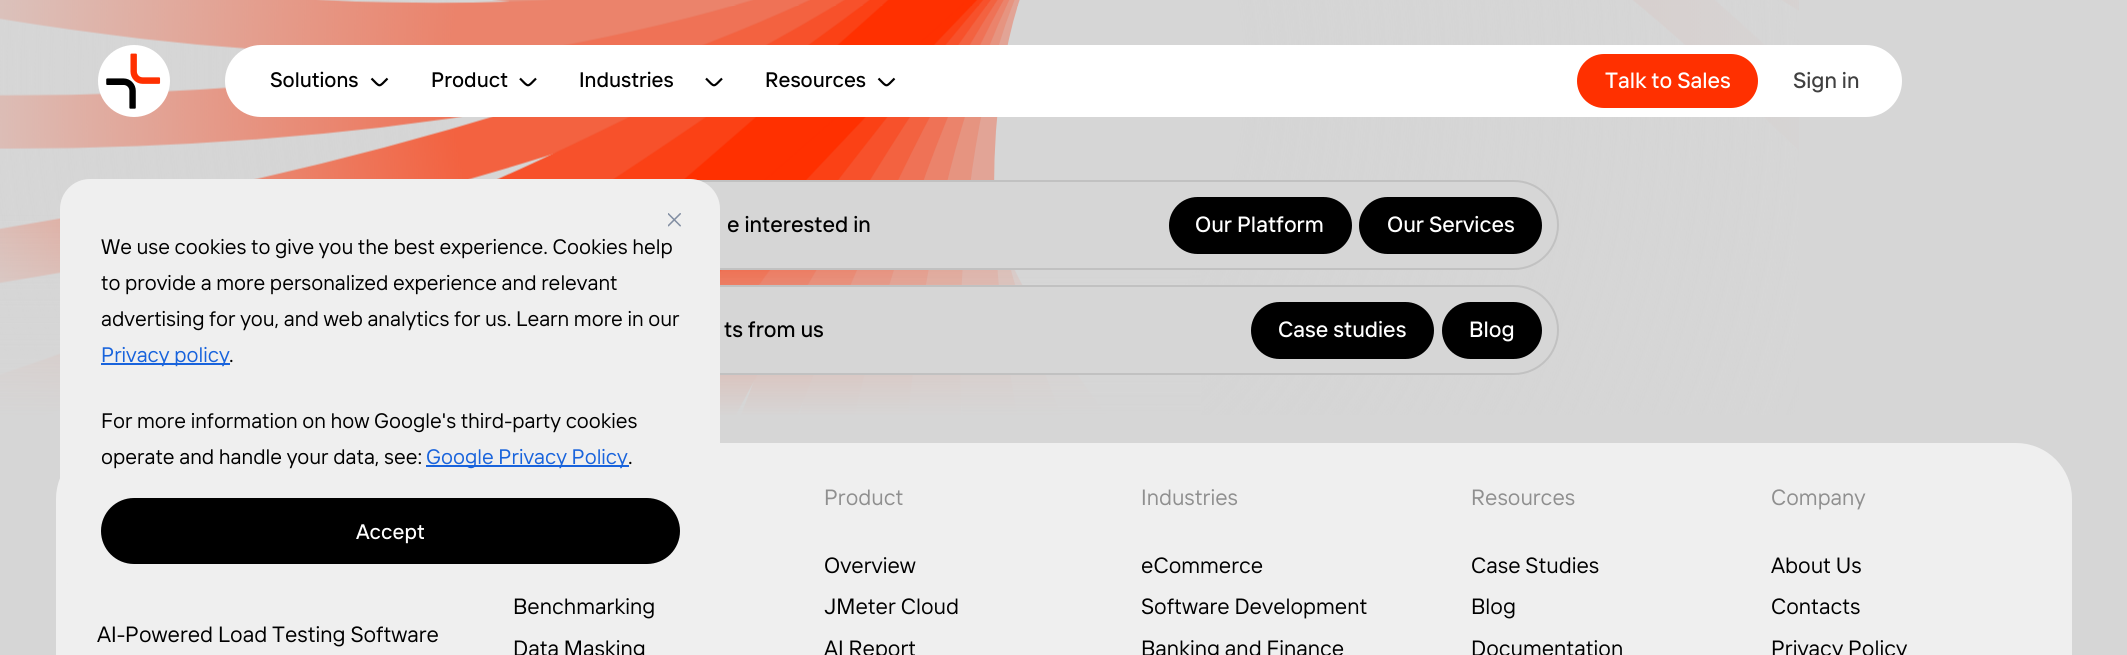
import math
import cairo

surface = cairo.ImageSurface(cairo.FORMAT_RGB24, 2127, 655)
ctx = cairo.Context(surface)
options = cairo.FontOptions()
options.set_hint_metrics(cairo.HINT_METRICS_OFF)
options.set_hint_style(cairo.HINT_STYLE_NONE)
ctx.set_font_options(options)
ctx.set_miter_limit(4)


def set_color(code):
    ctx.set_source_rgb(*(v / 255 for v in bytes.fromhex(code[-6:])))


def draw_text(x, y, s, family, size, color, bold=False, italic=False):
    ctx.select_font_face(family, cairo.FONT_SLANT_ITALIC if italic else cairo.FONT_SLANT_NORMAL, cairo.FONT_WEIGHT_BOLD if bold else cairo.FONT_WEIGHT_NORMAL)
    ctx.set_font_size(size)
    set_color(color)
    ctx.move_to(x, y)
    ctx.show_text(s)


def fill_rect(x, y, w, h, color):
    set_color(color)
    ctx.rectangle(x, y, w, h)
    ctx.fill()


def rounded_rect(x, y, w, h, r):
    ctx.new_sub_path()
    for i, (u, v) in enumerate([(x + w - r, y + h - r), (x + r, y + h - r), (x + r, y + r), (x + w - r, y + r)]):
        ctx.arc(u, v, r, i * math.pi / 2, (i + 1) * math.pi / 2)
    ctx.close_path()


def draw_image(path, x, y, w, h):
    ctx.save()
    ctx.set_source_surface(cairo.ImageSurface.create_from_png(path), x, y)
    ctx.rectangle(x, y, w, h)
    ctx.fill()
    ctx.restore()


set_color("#d6d6d6")
ctx.paint()
draw_image("assets/img2.png", 0, 0, 1799, 415)
set_color("#ffffff")
ctx.arc(134, 81, 36, 0, 2 * math.pi)
ctx.fill()
draw_image("assets/img1.png", 106, 53, 55, 56)
rounded_rect(225, 45, 1677, 72, 36)
ctx.fill()
draw_text(270, 87, "Solutions", "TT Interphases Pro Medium", 21, "#000000")
ctx.new_path()
ctx.move_to(387.5, 78.5)
ctx.curve_to(378.5, 87.5, 380.5, 87.5, 371.5, 78.5)
ctx.set_line_width(2.2)
ctx.stroke()
draw_text(431, 87, "Product", "TT Interphases Pro Medium", 21, "#000000")
ctx.new_path()
ctx.move_to(536, 78.5)
ctx.curve_to(527, 87.5, 529, 87.5, 520, 78.5)
ctx.stroke()
draw_text(579, 87, "Industries", "TT Interphases Pro Medium", 21, "#000000")
ctx.new_path()
ctx.move_to(722, 78.5)
ctx.curve_to(713, 87.5, 715, 87.5, 706, 78.5)
ctx.stroke()
draw_text(765, 87, "Resources", "TT Interphases Pro Medium", 21, "#000000")
ctx.new_path()
ctx.move_to(894.5, 78.5)
ctx.curve_to(885.5, 87.5, 887.5, 87.5, 878.5, 78.5)
ctx.stroke()
set_color("#ff3000")
rounded_rect(1577, 54, 181, 54, 27)
ctx.fill()
draw_text(1605, 88, "Talk to Sales", "TT Interphases Pro Medium", 22.1, "#ffffff")
draw_text(1793, 88, "Sign in", "TT Interphases Pro Medium", 22.1, "#404040")
gradient = cairo.LinearGradient(1064, 443, 1064, 210)
gradient.add_color_stop_rgba(0.11, 0.839, 0.839, 0.839, 1)
gradient.add_color_stop_rgba(0.36, 0.839, 0.839, 0.839, 0.82)
gradient.add_color_stop_rgba(1, 0.839, 0.839, 0.839, 0)
ctx.set_source(gradient)
ctx.rectangle(0, 214, 1201, 201)
ctx.fill()
set_color("#d6d6d6")
rounded_rect(569, 180, 990, 90, 45)
ctx.fill()
rounded_rect(570, 181, 988, 88, 44)
ctx.set_source_rgba(0, 0, 0, 0.1)
ctx.set_line_width(2)
ctx.stroke()
draw_text(727, 232, "e interested in", "TT Interphases Pro Medium", 22.1, "#000000")
rounded_rect(1169, 197, 183, 57, 28.5)
ctx.fill()
draw_text(1195, 232, "Our Platform", "TT Interphases Pro Medium", 22.1, "#ffffff")
set_color("#000000")
rounded_rect(1359, 197, 183, 57, 28.5)
ctx.fill()
draw_text(1387, 232, "Our Services", "TT Interphases Pro Medium", 22.1, "#ffffff")
set_color("#d6d6d6")
rounded_rect(569, 285, 990, 90, 45)
ctx.fill()
rounded_rect(570, 286, 988, 88, 44)
ctx.set_source_rgba(0, 0, 0, 0.1)
ctx.stroke()
draw_text(724, 337, "ts from us", "TT Interphases Pro Medium", 22.1, "#000000")
rounded_rect(1251, 302, 183, 57, 28.5)
ctx.fill()
draw_text(1278, 337, "Case studies", "TT Interphases Pro Medium", 22.1, "#ffffff")
set_color("#000000")
rounded_rect(1442, 302, 100, 57, 28.5)
ctx.fill()
draw_text(1469, 337, "Blog", "TT Interphases Pro Medium", 22.1, "#ffffff")
set_color("#efefef")
ctx.new_path()
ctx.move_to(112, 443)
ctx.line_to(2016, 443)
ctx.curve_to(2047, 443, 2072, 468, 2072, 499)
ctx.line_to(2072, 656)
ctx.line_to(56, 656)
ctx.line_to(56, 499)
ctx.curve_to(56, 468, 81, 443, 112, 443)
ctx.close_path()
ctx.fill()
draw_text(97, 642, "AI-Powered Load Testing Software", "TT Interphases Pro", 22.1, "#000000")
draw_text(513, 614, "Benchmarking", "TT Interphases Pro", 22.1, "#000000")
draw_text(513, 656, "Data Masking", "TT Interphases Pro", 22.1, "#000000")
draw_text(824, 505, "Product", "TT Interphases Pro", 22.1, "#8f8f8f")
draw_text(824, 573, "Overview", "TT Interphases Pro", 22.1, "#000000")
draw_text(824, 614, "JMeter Cloud", "TT Interphases Pro", 22.1, "#000000")
draw_text(824, 656, "AI Report", "TT Interphases Pro", 22.1, "#000000")
draw_text(1141, 505, "Industries", "TT Interphases Pro", 22.1, "#8f8f8f")
draw_text(1141, 573, "eCommerce", "TT Interphases Pro", 22.1, "#000000")
draw_text(1141, 614, "Software Development", "TT Interphases Pro", 22.1, "#000000")
draw_text(1141, 656, "Banking and Finance", "TT Interphases Pro", 22.1, "#000000")
draw_text(1471, 505, "Resources", "TT Interphases Pro", 22.1, "#8f8f8f")
draw_text(1471, 573, "Case Studies", "TT Interphases Pro", 22.1, "#000000")
draw_text(1471, 614, "Blog", "TT Interphases Pro", 22.1, "#000000")
draw_text(1471, 656, "Documentation", "TT Interphases Pro", 22.1, "#000000")
draw_text(1771, 505, "Company", "TT Interphases Pro", 22.1, "#8f8f8f")
draw_text(1771, 573, "About Us", "TT Interphases Pro", 22.1, "#000000")
draw_text(1771, 614, "Contacts", "TT Interphases Pro", 22.1, "#000000")
draw_text(1771, 656, "Privacy Policy", "TT Interphases Pro", 22.1, "#000000")
set_color("#efefef")
rounded_rect(61, 180, 658, 415, 29)
ctx.fill_preserve()
ctx.stroke()
draw_image("assets/img3.png", 668, 213, 13, 14)
draw_text(101, 254, "We use cookies to give you the best experience. Cookies help", "TT Interphases Pro", 21, "#000000")
draw_text(101, 290, "to provide a more personalized experience and relevant", "TT Interphases Pro", 21, "#000000")
draw_text(101, 326, "advertising for you, and web analytics for us. Learn more in our", "TT Interphases Pro", 21, "#000000")
fill_rect(101, 363, 129, 2, "#1863dc")
draw_text(101, 362, "Privacy policy", "TT Interphases Pro", 21, "#1863dc")
draw_text(229, 362, ".", "TT Interphases Pro", 21, "#000000")
draw_text(101, 428, "For more information on how Google's third-party cookies", "TT Interphases Pro", 21, "#000000")
draw_text(101, 464, "operate and handle your data, see:", "TT Interphases Pro", 21, "#000000")
fill_rect(426, 465, 203, 2, "#1863dc")
draw_text(426, 464, "Google Privacy Policy", "TT Interphases Pro", 21, "#1863dc")
draw_text(628, 464, ".", "TT Interphases Pro", 21, "#000000")
rounded_rect(102.5, 499.5, 576, 63, 31.5)
ctx.fill_preserve()
ctx.set_line_width(3)
ctx.stroke()
draw_text(356, 539, "Accept", "TT Interphases Pro Medium", 21, "#ffffff")
surface.write_to_png("output.png")
